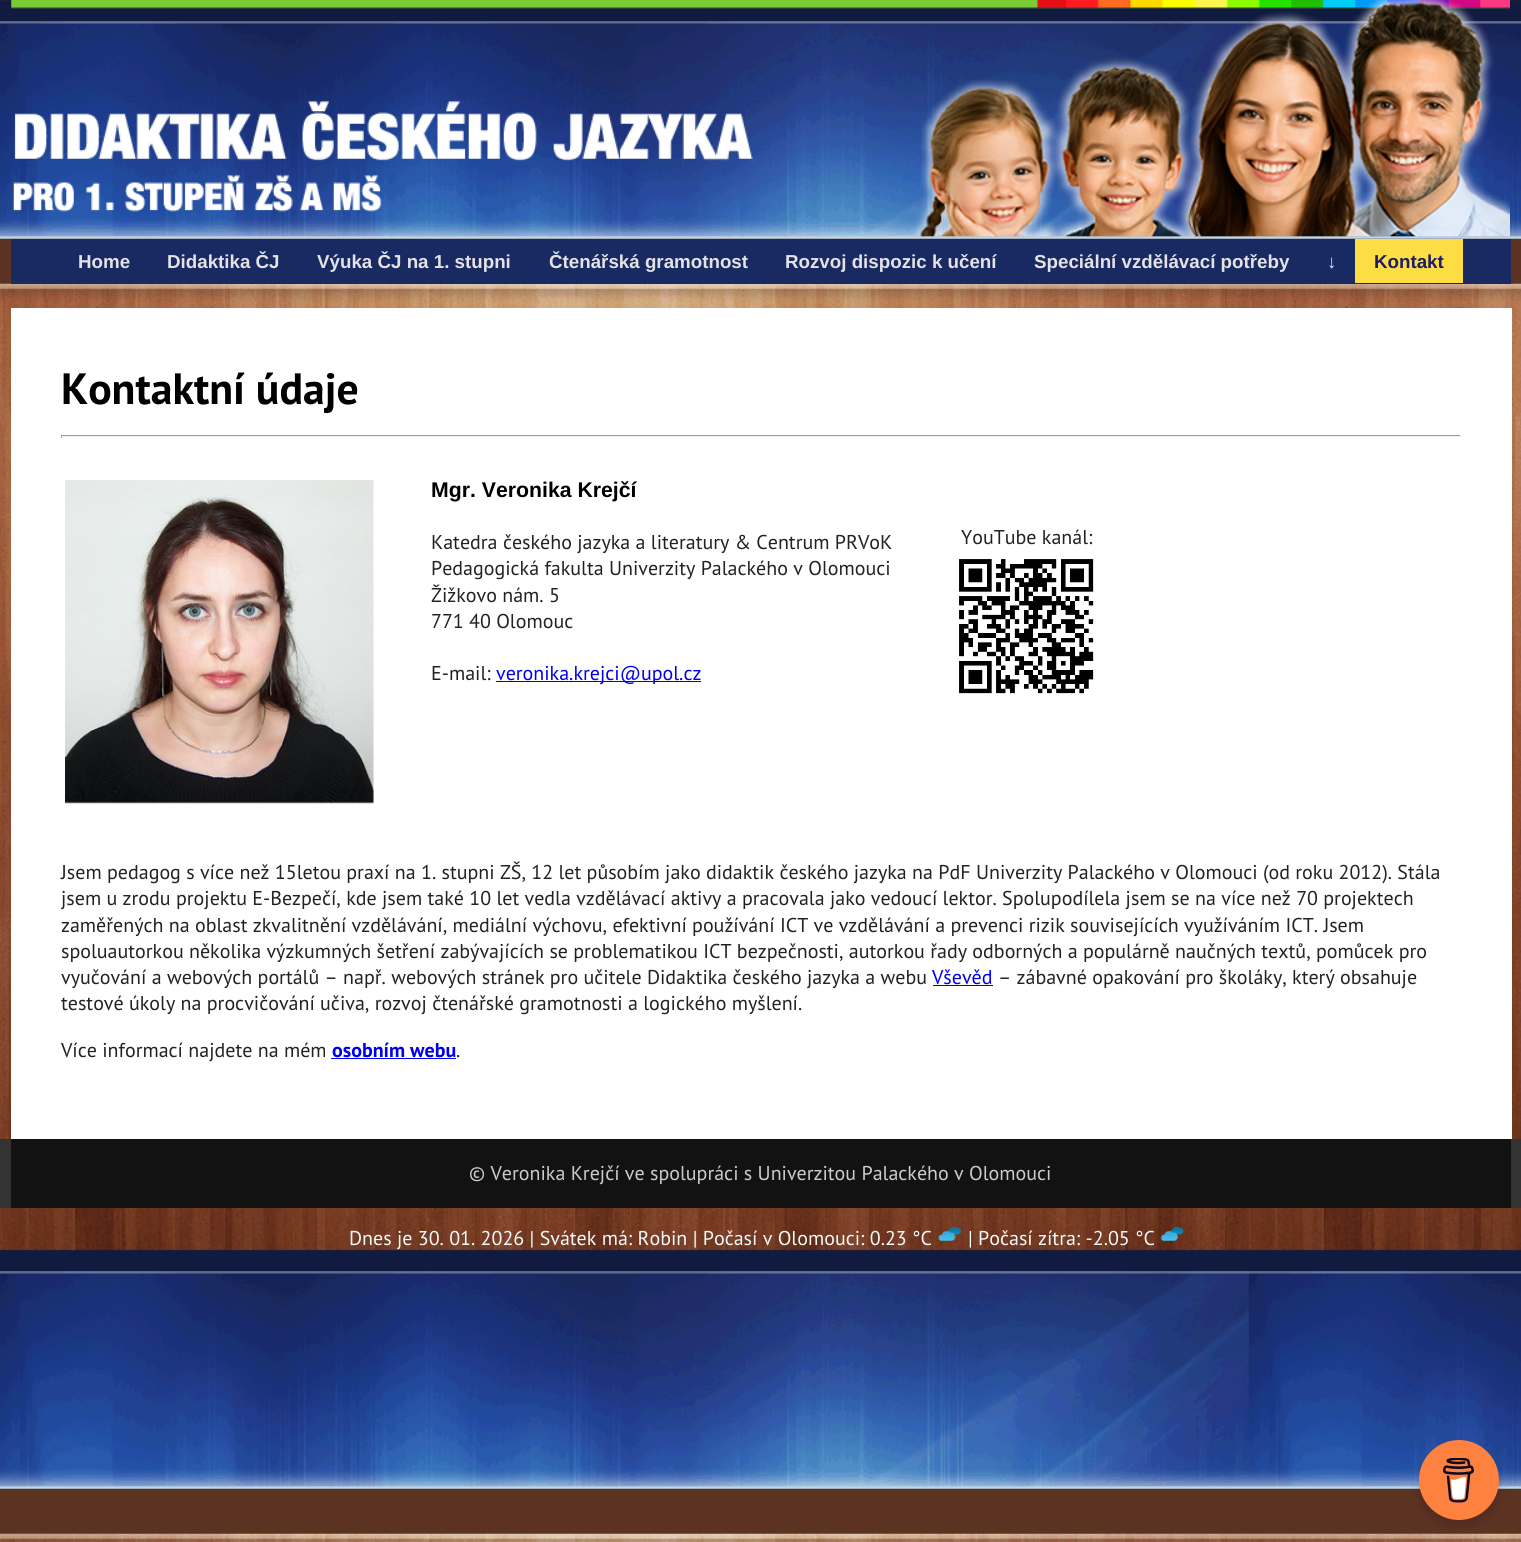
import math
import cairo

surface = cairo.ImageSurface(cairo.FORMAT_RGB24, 1521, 1542)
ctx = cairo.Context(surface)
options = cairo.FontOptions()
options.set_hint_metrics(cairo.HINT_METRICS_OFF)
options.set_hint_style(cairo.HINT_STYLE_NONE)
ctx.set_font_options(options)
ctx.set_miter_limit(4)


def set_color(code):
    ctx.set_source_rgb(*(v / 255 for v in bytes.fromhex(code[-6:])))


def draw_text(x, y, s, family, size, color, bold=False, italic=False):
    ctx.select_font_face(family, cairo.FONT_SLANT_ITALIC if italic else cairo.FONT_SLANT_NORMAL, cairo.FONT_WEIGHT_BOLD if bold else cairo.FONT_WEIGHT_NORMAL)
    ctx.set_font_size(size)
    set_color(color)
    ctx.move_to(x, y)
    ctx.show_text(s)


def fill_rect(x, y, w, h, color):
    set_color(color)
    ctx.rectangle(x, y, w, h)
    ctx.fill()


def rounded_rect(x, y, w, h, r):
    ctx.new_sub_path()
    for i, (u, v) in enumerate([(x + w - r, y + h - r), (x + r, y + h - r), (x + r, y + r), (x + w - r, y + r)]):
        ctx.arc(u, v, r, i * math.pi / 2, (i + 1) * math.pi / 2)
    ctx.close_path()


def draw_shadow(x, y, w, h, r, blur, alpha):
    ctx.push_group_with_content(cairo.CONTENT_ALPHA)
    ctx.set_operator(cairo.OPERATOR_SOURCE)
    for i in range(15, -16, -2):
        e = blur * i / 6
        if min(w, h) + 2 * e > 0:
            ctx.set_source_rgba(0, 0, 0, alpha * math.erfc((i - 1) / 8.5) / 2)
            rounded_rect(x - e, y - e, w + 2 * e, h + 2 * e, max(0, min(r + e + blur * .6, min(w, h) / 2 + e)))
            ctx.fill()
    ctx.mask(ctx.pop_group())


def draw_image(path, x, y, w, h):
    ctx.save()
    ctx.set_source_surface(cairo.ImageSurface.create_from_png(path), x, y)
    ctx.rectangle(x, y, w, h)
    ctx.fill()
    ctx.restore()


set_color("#ffffff")
ctx.paint()
draw_image("assets/img1.png", 0, 0, 1521, 1542)
draw_image("assets/img2.png", 11, 0, 1499, 237)
fill_rect(11, 239, 1500, 45, "#192962")
draw_text(78, 268, "Home", "Liberation Sans", 18.75, "#e3e3e6", bold=True)
draw_text(167, 268, "Didaktika ČJ", "Liberation Sans", 18.75, "#e3e3e6", bold=True)
draw_text(317, 268, "Výuka ČJ na 1. stupni", "Liberation Sans", 18.75, "#e3e3e6", bold=True)
draw_text(549, 268, "Čtenářská gramotnost", "Liberation Sans", 18.75, "#e3e3e6", bold=True)
draw_text(785, 268, "Rozvoj dispozic k učení", "Liberation Sans", 18.75, "#e3e3e6", bold=True)
draw_text(1034, 268, "Speciální vzdělávací potřeby", "Liberation Sans", 18.75, "#e3e3e6", bold=True)
draw_text(1327, 268, "↓", "Liberation Sans", 18.75, "#e3e3e6", bold=True)
fill_rect(1355, 239, 108, 44, "#fcde44")
draw_text(1374, 268, "Kontakt", "Liberation Sans", 18.75, "#1d1d63", bold=True)
fill_rect(11, 308, 1501, 831, "#ffffff")
draw_text(61, 404, "Kontaktní údaje", "PT Sans", 43.75, "#000000", bold=True)
fill_rect(61, 435, 1400, 1, "#9f9f9f")
fill_rect(1460, 435, 1, 3, "#eeeeee")
fill_rect(61, 436, 1400, 1, "#eeeeee")
fill_rect(61, 435, 1, 3, "#9f9f9f")
draw_image("assets/img3.png", 65, 480, 309, 324)
draw_text(431, 497, "Mgr. Veronika Krejčí", "Liberation Sans", 21.25, "#000000", bold=True)
draw_text(431, 549, "Katedra českého jazyka a literatury & Centrum PRVoK", "PT Sans", 20, "#222222")
draw_text(431, 575, "Pedagogická fakulta Univerzity Palackého v Olomouci", "PT Sans", 20, "#222222")
draw_text(431, 602, "Žižkovo nám. 5", "PT Sans", 20, "#222222")
draw_text(431, 628, "771 40 Olomouc", "PT Sans", 20, "#222222")
draw_text(431, 680, "E-mail:", "PT Sans", 20, "#222222")
fill_rect(496, 681, 205, 1, "#0000ee")
draw_text(496, 680, "veronika.krejci@upol.cz", "PT Sans", 20, "#0000ee")
draw_text(961, 544, "YouTube kanál:", "PT Sans", 20, "#222222")
draw_image("assets/img4.png", 959, 559, 135, 135)
draw_text(61, 879, "Jsem pedagog s více než 15letou praxí na 1. stupni ZŠ, 12 let působím jako didaktik českého jazyka na PdF Univerzity Palackého v Olomouci (od roku 2012). Stála", "PT Sans", 20, "#222222")
draw_text(61, 905, "jsem u zrodu projektu E-Bezpečí, kde jsem také 10 let vedla vzdělávací aktivy a pracovala jako vedoucí lektor. Spolupodílela jsem se na více než 70 projektech", "PT Sans", 20, "#222222")
draw_text(61, 932, "zaměřených na oblast zkvalitnění vzdělávání, mediální výchovu, efektivní používání ICT ve vzdělávání a prevenci rizik souvisejících využíváním ICT. Jsem", "PT Sans", 20, "#222222")
draw_text(61, 958, "spoluautorkou několika výzkumných šetření zabývajících se problematikou ICT bezpečnosti, autorkou řady odborných a populárně naučných textů, pomůcek pro", "PT Sans", 20, "#222222")
draw_text(61, 984, "vyučování a webových portálů – např. webových stránek pro učitele Didaktika českého jazyka a webu", "PT Sans", 20, "#222222")
draw_text(932, 984, "Vševěd", "PT Sans", 20, "#0000ee")
fill_rect(933, 985, 60, 1, "#0000ee")
draw_text(998, 984, "– zábavné opakování pro školáky, který obsahuje", "PT Sans", 20, "#222222")
draw_text(61, 1010, "testové úkoly na procvičování učiva, rozvoj čtenářské gramotnosti a logického myšlení.", "PT Sans", 20, "#222222")
draw_text(61, 1057, "Více informací najdete na mém", "PT Sans", 20, "#222222")
draw_text(332, 1057, "osobním webu", "PT Sans", 20, "#0000ee", bold=True)
fill_rect(331, 1058, 125, 1, "#0000ee")
draw_text(456, 1057, ".", "PT Sans", 20, "#222222")
fill_rect(0, 1139, 1521, 69, "#333333")
fill_rect(11, 1139, 1500, 69, "#121212")
draw_text(469, 1180, "© Veronika Krejčí ve spolupráci s Univerzitou Palackého v Olomouci", "PT Sans", 20, "#cccccc")
draw_text(349, 1245, "Dnes je 30. 01. 2026 | Svátek má: Robin | Počasí v Olomouci: 0.23 °C", "PT Sans", 20, "#f0f9fc")
draw_image("assets/img5.png", 938, 1227, 24, 14)
draw_text(968, 1245, "| Počasí zítra: -2.05 °C", "PT Sans", 20, "#f0f9fc")
draw_image("assets/img6.png", 1161, 1227, 23, 14)
set_color("#000000")
draw_shadow(1419, 1445, 80, 80, 40, 5, 0.15)
set_color("#ff813f")
ctx.arc(1459, 1480, 40, 0, 2 * math.pi)
ctx.fill()
draw_image("assets/img7.png", 1443, 1458, 31, 45)
surface.write_to_png("output.png")
